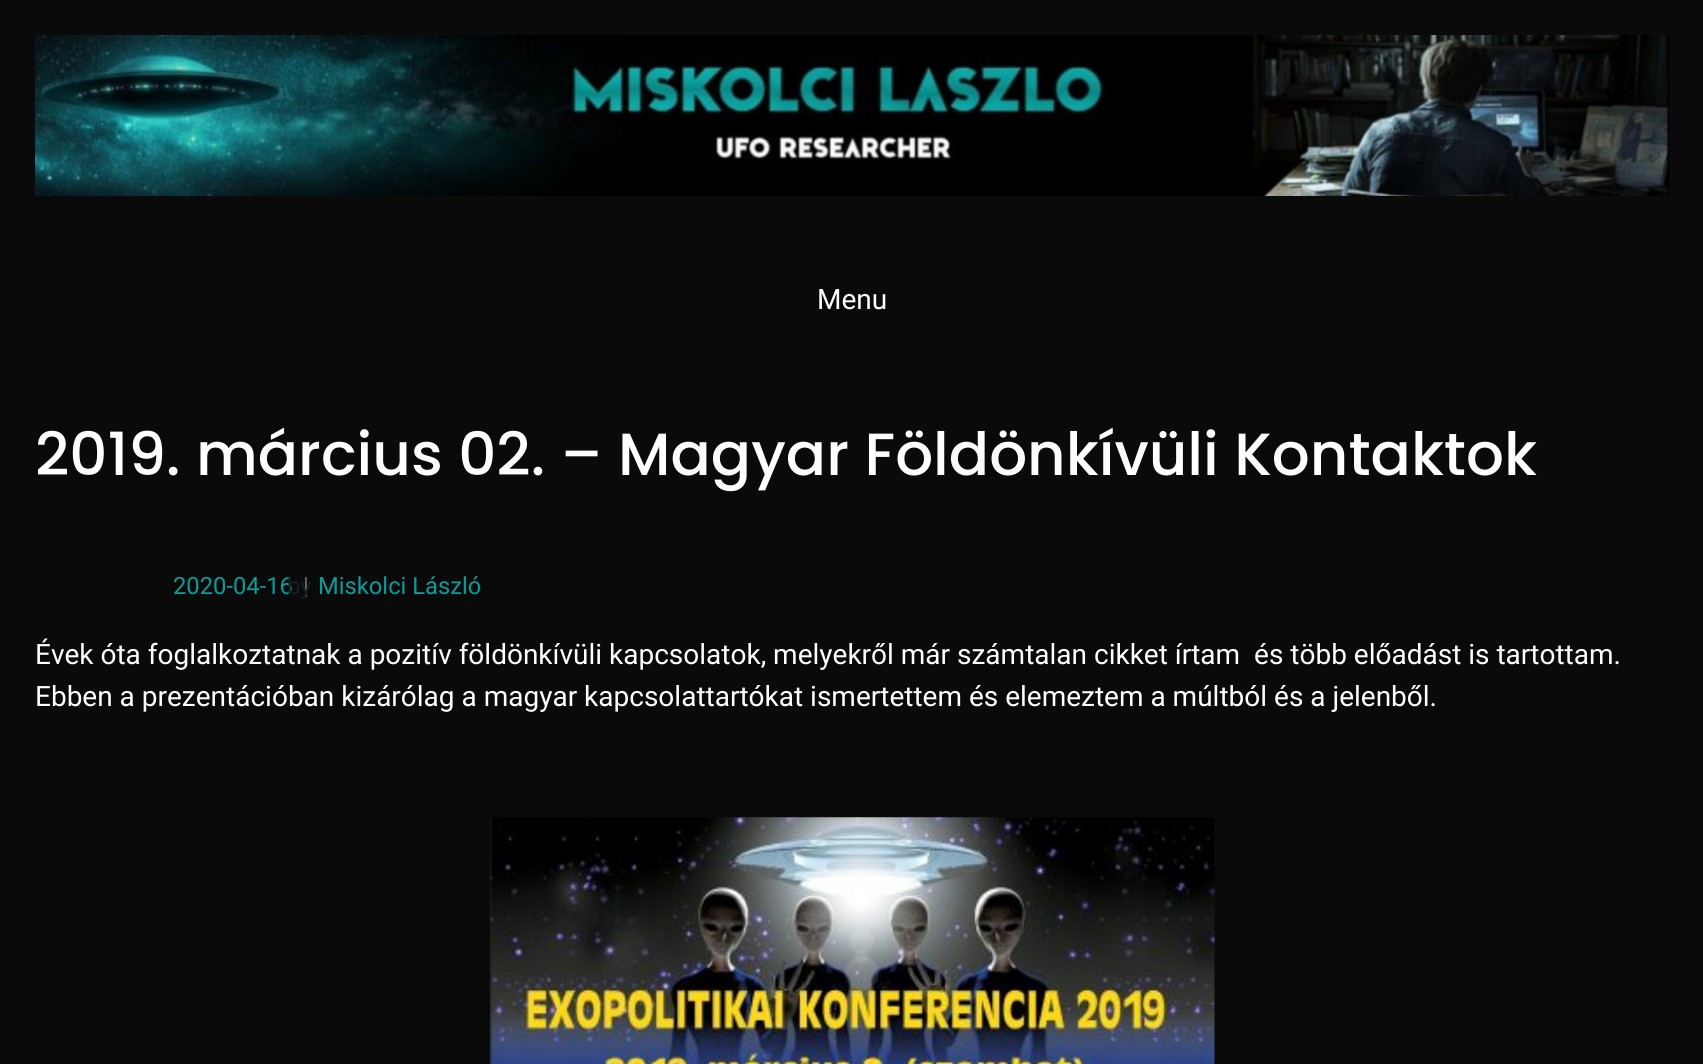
import math
import cairo

surface = cairo.ImageSurface(cairo.FORMAT_RGB24, 1703, 1064)
ctx = cairo.Context(surface)
options = cairo.FontOptions()
options.set_hint_metrics(cairo.HINT_METRICS_OFF)
options.set_hint_style(cairo.HINT_STYLE_NONE)
ctx.set_font_options(options)
ctx.set_miter_limit(4)


def set_color(code):
    ctx.set_source_rgb(*(v / 255 for v in bytes.fromhex(code[-6:])))


def draw_text(x, y, s, family, size, color, bold=False, italic=False):
    ctx.select_font_face(family, cairo.FONT_SLANT_ITALIC if italic else cairo.FONT_SLANT_NORMAL, cairo.FONT_WEIGHT_BOLD if bold else cairo.FONT_WEIGHT_NORMAL)
    ctx.set_font_size(size)
    set_color(color)
    ctx.move_to(x, y)
    ctx.show_text(s)


def draw_image(path, x, y, w, h):
    ctx.save()
    ctx.set_source_surface(cairo.ImageSurface.create_from_png(path), x, y)
    ctx.rectangle(x, y, w, h)
    ctx.fill()
    ctx.restore()


set_color("#0a0a0a")
ctx.paint()
draw_image("assets/img1.png", 35, 35, 1635, 161)
draw_text(817, 309, "Menu", "Roboto", 28, "#ffffff")
draw_text(35, 475, "2019. március 02. – Magyar Földönkívüli Kontaktok", "Poppins Medium", 59.5, "#ffffff")
draw_text(173, 594, "2020-04-16", "Roboto", 23.75, "#0a9c9a")
draw_text(303, 594, "|", "Roboto", 23.75, "#6e6e6e")
draw_text(287, 594, "by", "Roboto", 23.75, "#112120")
draw_text(318, 594, "Miskolci László", "Roboto", 23.75, "#0a9c9a")
draw_text(35, 664, "Évek óta foglalkoztatnak a pozitív földönkívüli kapcsolatok, melyekről már számtalan cikket írtam  és több előadást is tartottam.", "Roboto", 28, "#ffffff")
draw_text(35, 706, "Ebben a prezentációban kizárólag a magyar kapcsolattartókat ismertettem és elemeztem a múltból és a jelenből.", "Roboto", 28, "#ffffff")
draw_image("assets/img2.png", 490, 817, 725, 247)
surface.write_to_png("output.png")
